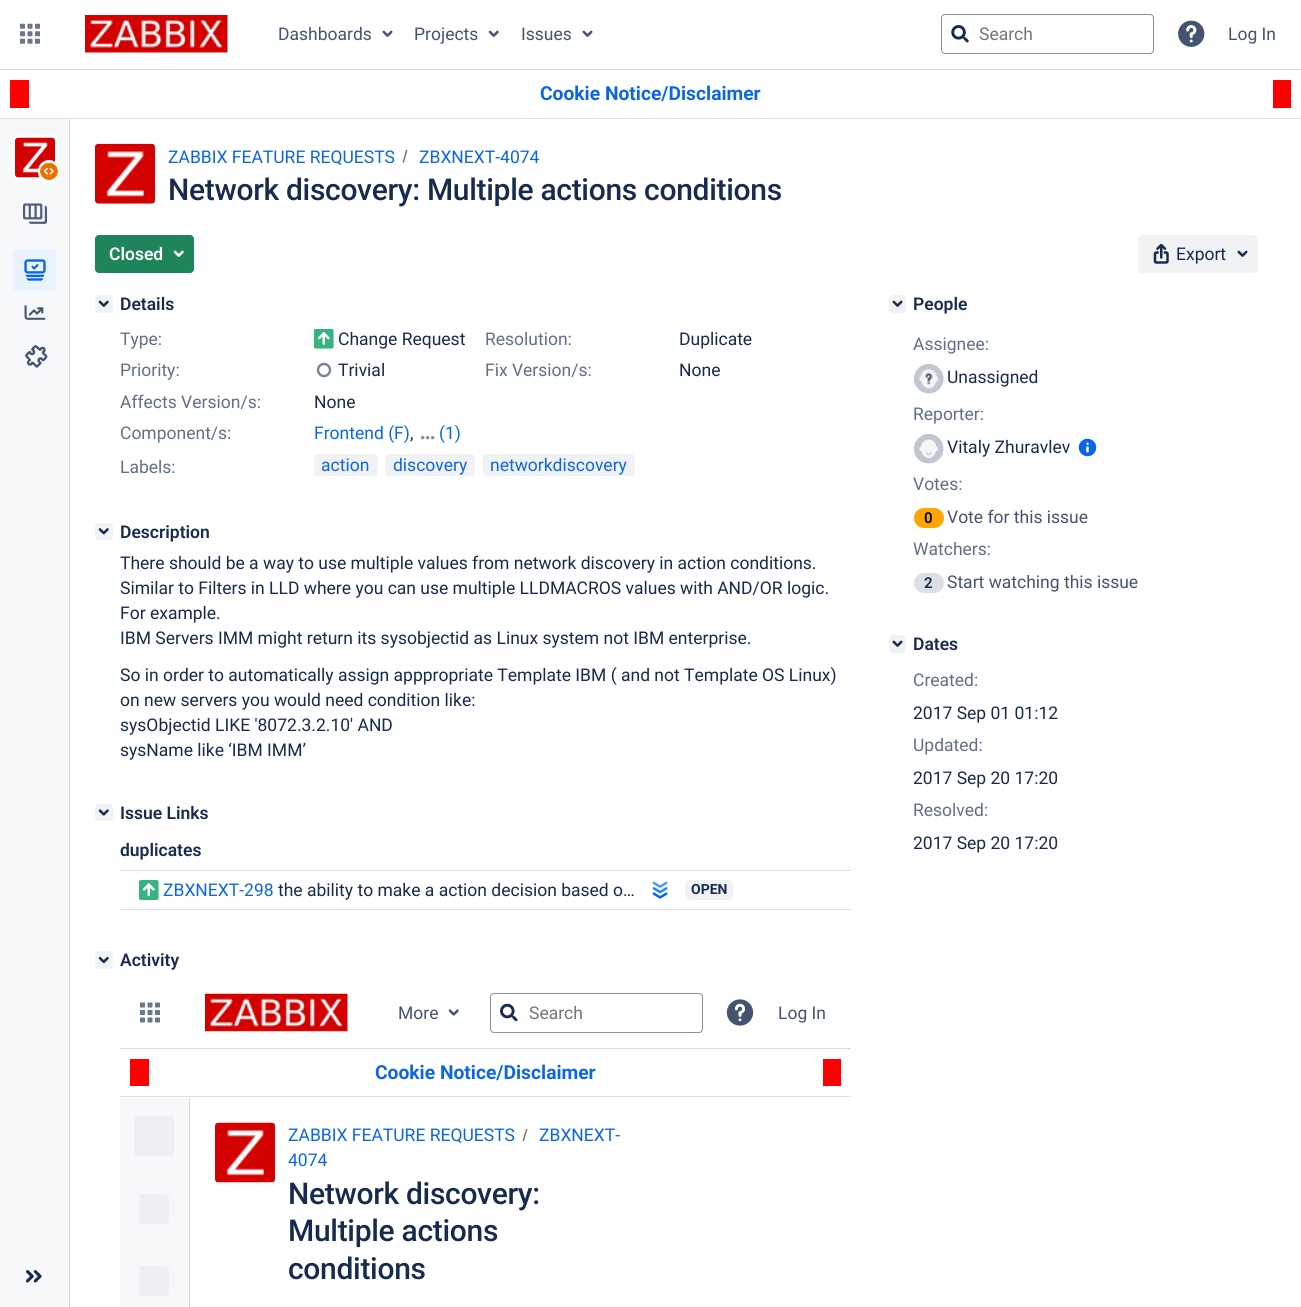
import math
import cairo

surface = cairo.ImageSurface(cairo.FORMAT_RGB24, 1301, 1307)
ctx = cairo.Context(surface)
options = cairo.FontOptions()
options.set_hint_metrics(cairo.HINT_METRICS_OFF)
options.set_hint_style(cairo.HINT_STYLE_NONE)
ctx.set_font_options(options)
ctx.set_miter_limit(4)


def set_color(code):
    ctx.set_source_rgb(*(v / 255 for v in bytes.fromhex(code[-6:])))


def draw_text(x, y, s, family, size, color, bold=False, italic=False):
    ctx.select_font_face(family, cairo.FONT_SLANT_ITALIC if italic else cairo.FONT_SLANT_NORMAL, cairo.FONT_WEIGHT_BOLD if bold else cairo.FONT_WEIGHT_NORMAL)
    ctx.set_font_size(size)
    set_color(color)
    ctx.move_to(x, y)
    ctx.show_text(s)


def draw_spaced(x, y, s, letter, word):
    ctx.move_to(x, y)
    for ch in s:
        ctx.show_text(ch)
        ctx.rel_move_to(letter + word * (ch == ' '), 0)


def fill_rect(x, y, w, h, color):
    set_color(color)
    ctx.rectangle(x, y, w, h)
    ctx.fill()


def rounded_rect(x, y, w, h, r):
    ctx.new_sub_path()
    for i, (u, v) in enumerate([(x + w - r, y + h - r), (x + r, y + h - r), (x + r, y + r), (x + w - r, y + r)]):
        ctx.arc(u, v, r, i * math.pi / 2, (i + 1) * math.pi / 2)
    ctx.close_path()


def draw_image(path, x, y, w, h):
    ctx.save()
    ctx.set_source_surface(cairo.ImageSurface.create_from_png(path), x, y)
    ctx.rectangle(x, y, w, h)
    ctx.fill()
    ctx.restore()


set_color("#ffffff")
ctx.paint()
fill_rect(0, 69, 1301, 1, "#d8dce2")
draw_image("assets/img1.png", 20, 23, 20, 21)
draw_image("assets/img2.png", 85, 15, 143, 38)
draw_text(278, 40, "Dashboards", "Roboto", 17.5, "#44546f")
draw_image("assets/img3.png", 382, 30, 11, 7)
draw_text(414, 40, "Projects", "Roboto", 17.5, "#44546f")
draw_image("assets/img4.png", 488, 30, 11, 7)
draw_text(521, 40, "Issues", "Roboto", 17.5, "#44546f")
draw_image("assets/img3.png", 582, 30, 11, 7)
rounded_rect(941.5, 14.5, 212, 39, 3.5)
set_color("#8590a2")
ctx.set_line_width(1)
ctx.stroke()
draw_image("assets/img5.png", 951, 25, 18, 18)
draw_text(979, 40, "Search", "Roboto", 17.5, "#757575")
draw_image("assets/img6.png", 1178, 20, 27, 27)
draw_text(1228, 40, "Log In", "Roboto", 17.5, "#44546f")
fill_rect(0, 118, 1301, 1, "#dde0e5")
fill_rect(1273, 80, 18, 28, "#ff0000")
fill_rect(10, 80, 19, 28, "#ff0000")
draw_text(540, 100, "Cookie Notice/Disclaimer", "Roboto", 19.25, "#0c66e4", bold=True)
fill_rect(0, 119, 69, 1188, "#f7f8f9")
fill_rect(69, 119, 1, 1188, "#d6d9df")
rounded_rect(14.5, 136.5, 42, 42, 4.5)
set_color("#ffffff")
ctx.set_line_width(3)
ctx.stroke()
draw_image("assets/img7.png", 15, 137, 40, 41)
rounded_rect(38, 160, 22, 23, 11)
ctx.fill()
draw_image("assets/img8.png", 40, 163, 18, 17)
draw_image("assets/img9.png", 22, 203, 26, 21)
set_color("#e9f2ff")
rounded_rect(13, 249, 43, 42, 4)
ctx.fill()
draw_image("assets/img10.png", 24, 259, 22, 22)
draw_image("assets/img11.png", 24, 305, 22, 15)
draw_image("assets/img12.png", 25, 345, 23, 23)
draw_image("assets/img13.png", 26, 1270, 16, 13)
draw_image("assets/img14.png", 95, 143, 60, 61)
draw_text(168, 163, "ZABBIX FEATURE REQUESTS", "Roboto", 17.5, "#0c66e4")
set_color("#707070")
ctx.new_path()
ctx.move_to(404, 162.5)
ctx.line_to(407.5, 150)
ctx.line_to(406, 150)
ctx.line_to(402.5, 162.5)
ctx.close_path()
ctx.fill()
draw_text(419, 163, "ZBXNEXT-4074", "Roboto", 17.5, "#0c66e4")
ctx.select_font_face("Roboto Medium")
ctx.set_font_size(30)
set_color("#172b4d")
draw_spaced(168, 200, "Network discovery: Multiple actions conditions", -0.3, 0)
set_color("#1f845a")
rounded_rect(95.5, 235.5, 98, 37, 3.5)
ctx.fill_preserve()
ctx.set_line_width(1)
ctx.stroke()
draw_text(109, 260, "Closed", "Roboto SemiBold", 17.5, "#ffffff")
draw_image("assets/img15.png", 173, 250, 11, 7)
set_color("#f0f2f4")
rounded_rect(1138, 235, 120, 38, 4)
ctx.fill()
draw_image("assets/img16.png", 1153, 244, 16, 20)
draw_text(1176, 260, "Export", "Roboto", 17.5, "#172b4d")
draw_image("assets/img17.png", 1237, 250, 11, 7)
set_color("#f0f2f4")
rounded_rect(95, 295, 18, 18, 4)
ctx.fill()
draw_image("assets/img18.png", 98, 300, 11, 7)
draw_text(120, 310, "Details", "Roboto SemiBold", 17.5, "#172b4d")
draw_text(120, 345, "Type:", "Roboto", 17.5, "#626f86")
draw_image("assets/img19.png", 314, 329, 20, 20)
draw_text(338, 345, "Change Request", "Roboto", 17.5, "#172b4d")
draw_text(485, 345, "Resolution:", "Roboto", 17.5, "#626f86")
draw_text(679, 345, "Duplicate", "Roboto", 17.5, "#172b4d")
draw_text(120, 376, "Priority:", "Roboto", 17.5, "#626f86")
ctx.new_path()
ctx.arc(324, 370, 6, 0, 2 * math.pi)
set_color("#7a8699")
ctx.set_line_width(2.5)
ctx.stroke()
draw_text(338, 376, "Trivial", "Roboto", 17.5, "#172b4d")
draw_text(485, 376, "Fix Version/s:", "Roboto", 17.5, "#626f86")
draw_text(679, 376, "None", "Roboto", 17.5, "#172b4d")
draw_text(120, 408, "Affects Version/s:", "Roboto", 17.5, "#626f86")
draw_text(314, 408, "None", "Roboto", 17.5, "#172b4d")
draw_text(120, 439, "Component/s:", "Roboto", 17.5, "#626f86")
draw_text(314, 439, "Frontend (F)", "Roboto", 17.5, "#0c66e4")
draw_text(410, 439, ",", "Roboto", 17.5, "#172b4d")
draw_image("assets/img20.png", 420, 435, 16, 6)
draw_text(439, 439, "(1)", "Roboto", 17.5, "#0c66e4")
draw_text(120, 473, "Labels:", "Roboto", 17.5, "#626f86")
set_color("#f0f2f4")
rounded_rect(314, 454, 64, 22, 4)
ctx.fill()
draw_text(321, 471, "action", "Roboto", 17.5, "#0c66e4")
set_color("#f0f2f4")
rounded_rect(385, 454, 90, 22, 4)
ctx.fill()
draw_text(393, 471, "discovery", "Roboto", 17.5, "#0c66e4")
set_color("#f0f2f4")
rounded_rect(483, 454, 152, 22, 4)
ctx.fill()
draw_text(490, 471, "networkdiscovery", "Roboto", 17.5, "#0c66e4")
set_color("#f0f2f4")
rounded_rect(95, 523, 18, 17, 4)
ctx.fill()
draw_image("assets/img21.png", 98, 528, 11, 7)
draw_text(120, 538, "Description", "Roboto SemiBold", 17.5, "#172b4d")
draw_text(120, 569, "There should be a way to use multiple values from network discovery in action conditions.", "Roboto", 17.5, "#172b4d")
draw_text(120, 594, "Similar to Filters in LLD where you can use multiple LLDMACROS values with AND/OR logic.", "Roboto", 17.5, "#172b4d")
draw_text(120, 619, "For example.", "Roboto", 17.5, "#172b4d")
draw_text(120, 644, "IBM Servers IMM might return its sysobjectid as Linux system not IBM enterprise.", "Roboto", 17.5, "#172b4d")
draw_text(120, 681, "So in order to automatically assign apppropriate Template IBM ( and not Template OS Linux)", "Roboto", 17.5, "#172b4d")
draw_text(120, 706, "on new servers you would need condition like:", "Roboto", 17.5, "#172b4d")
draw_text(120, 731, "sysObjectid LIKE '8072.3.2.10' AND", "Roboto", 17.5, "#172b4d")
draw_text(120, 756, "sysName like ‘IBM IMM’", "Roboto", 17.5, "#172b4d")
set_color("#f0f2f4")
rounded_rect(95, 804, 18, 17, 4)
ctx.fill()
draw_image("assets/img22.png", 98, 809, 11, 7)
draw_text(120, 819, "Issue Links", "Roboto SemiBold", 17.5, "#172b4d")
draw_text(120, 856, "duplicates", "Roboto SemiBold", 17.5, "#172b4d")
fill_rect(120, 870, 731, 1, "#dde0e5")
fill_rect(120, 909, 731, 1, "#dde0e5")
draw_image("assets/img23.png", 139, 880, 20, 20)
draw_text(163, 896, "ZBXNEXT-298", "Roboto", 17.5, "#0c66e4")
draw_text(278, 896, "the ability to make a action decision based o…", "Roboto", 17.5, "#172b4d")
draw_image("assets/img24.png", 652, 881, 16, 18)
set_color("#f0f2f4")
rounded_rect(685, 880, 48, 20, 4)
ctx.fill()
draw_text(691, 894, "OPEN", "Roboto", 14, "#172b4d", bold=True)
set_color("#f0f2f4")
rounded_rect(95, 951, 18, 18, 4)
ctx.fill()
draw_image("assets/img25.png", 98, 956, 11, 8)
draw_text(120, 966, "Activity", "Roboto SemiBold", 17.5, "#172b4d")
fill_rect(120, 1048, 731, 1, "#d8dce2")
draw_image("assets/img26.png", 140, 1002, 20, 21)
draw_image("assets/img27.png", 205, 993, 143, 39)
draw_text(398, 1019, "More", "Roboto", 17.5, "#44546f")
draw_image("assets/img28.png", 448, 1009, 11, 7)
rounded_rect(490.5, 993.5, 212, 39, 3.5)
set_color("#8590a2")
ctx.set_line_width(1)
ctx.stroke()
draw_image("assets/img29.png", 500, 1003, 18, 19)
draw_text(529, 1019, "Search", "Roboto", 17.5, "#757575")
draw_image("assets/img30.png", 726, 999, 28, 27)
draw_text(778, 1019, "Log In", "Roboto", 17.5, "#44546f")
fill_rect(120, 1096, 731, 1, "#dde0e5")
fill_rect(823, 1059, 18, 27, "#ff0000")
fill_rect(130, 1059, 19, 27, "#ff0000")
draw_text(375, 1079, "Cookie Notice/Disclaimer", "Roboto", 19.25, "#0c66e4", bold=True)
fill_rect(120, 1098, 69, 209, "#f7f8f9")
fill_rect(189, 1098, 1, 209, "#d6d9df")
set_color("#edeff2")
rounded_rect(134, 1116, 40, 40, 4)
ctx.fill()
rounded_rect(139, 1194, 30, 30, 4)
ctx.fill()
rounded_rect(139, 1266, 30, 30, 4)
ctx.fill()
draw_image("assets/img31.png", 215, 1122, 60, 61)
set_color("#707070")
ctx.new_path()
ctx.move_to(524, 1141)
ctx.line_to(527.5, 1129)
ctx.line_to(526, 1129)
ctx.line_to(522.5, 1141)
ctx.close_path()
ctx.fill()
draw_text(539, 1141, "ZBXNEXT-", "Roboto", 17.5, "#0c66e4")
draw_text(288, 1166, "4074", "Roboto", 17.5, "#0c66e4")
draw_text(288, 1141, "ZABBIX FEATURE REQUESTS", "Roboto", 17.5, "#0c66e4")
ctx.select_font_face("Roboto Medium")
ctx.set_font_size(30)
set_color("#172b4d")
draw_spaced(288, 1204, "Network discovery:", -0.3, 0)
draw_spaced(288, 1241, "Multiple actions", -0.3, 0)
draw_spaced(288, 1279, "conditions", -0.3, 0)
set_color("#f0f2f4")
rounded_rect(889, 295, 17, 18, 4)
ctx.fill()
draw_image("assets/img32.png", 892, 300, 11, 7)
draw_text(913, 310, "People", "Roboto SemiBold", 17.5, "#172b4d")
draw_text(913, 350, "Assignee:", "Roboto", 17.5, "#626f86")
draw_image("assets/img33.png", 914, 364, 30, 30)
draw_text(947, 383, "Unassigned", "Roboto", 17.5, "#172b4d")
draw_text(913, 420, "Reporter:", "Roboto", 17.5, "#626f86")
draw_image("assets/img34.png", 914, 434, 30, 30)
draw_text(947, 453, "Vitaly Zhuravlev", "Roboto", 17.5, "#172b4d")
draw_image("assets/img35.png", 1078, 438, 19, 19)
draw_text(913, 490, "Votes:", "Roboto", 17.5, "#626f86")
set_color("#ffa500")
rounded_rect(914, 508, 30, 20, 10)
ctx.fill()
draw_text(924, 523, "0", "Roboto SemiBold", 15, "#000000")
draw_text(947, 523, "Vote for this issue", "Roboto", 17.5, "#44546f")
draw_text(913, 555, "Watchers:", "Roboto", 17.5, "#626f86")
set_color("#dcdfe4")
rounded_rect(914, 573, 30, 20, 10)
ctx.fill()
draw_text(924, 588, "2", "Roboto SemiBold", 15, "#172b4d")
draw_text(947, 588, "Start watching this issue", "Roboto", 17.5, "#44546f")
set_color("#f0f2f4")
rounded_rect(889, 635, 17, 18, 4)
ctx.fill()
draw_image("assets/img32.png", 892, 640, 11, 7)
draw_text(913, 650, "Dates", "Roboto SemiBold", 17.5, "#172b4d")
draw_text(913, 686, "Created:", "Roboto", 17.5, "#626f86")
draw_text(913, 719, "2017 Sep 01 01:12", "Roboto", 17.5, "#172b4d")
draw_text(913, 751, "Updated:", "Roboto", 17.5, "#626f86")
draw_text(913, 784, "2017 Sep 20 17:20", "Roboto", 17.5, "#172b4d")
draw_text(913, 816, "Resolved:", "Roboto", 17.5, "#626f86")
draw_text(913, 849, "2017 Sep 20 17:20", "Roboto", 17.5, "#172b4d")
surface.write_to_png("output.png")
